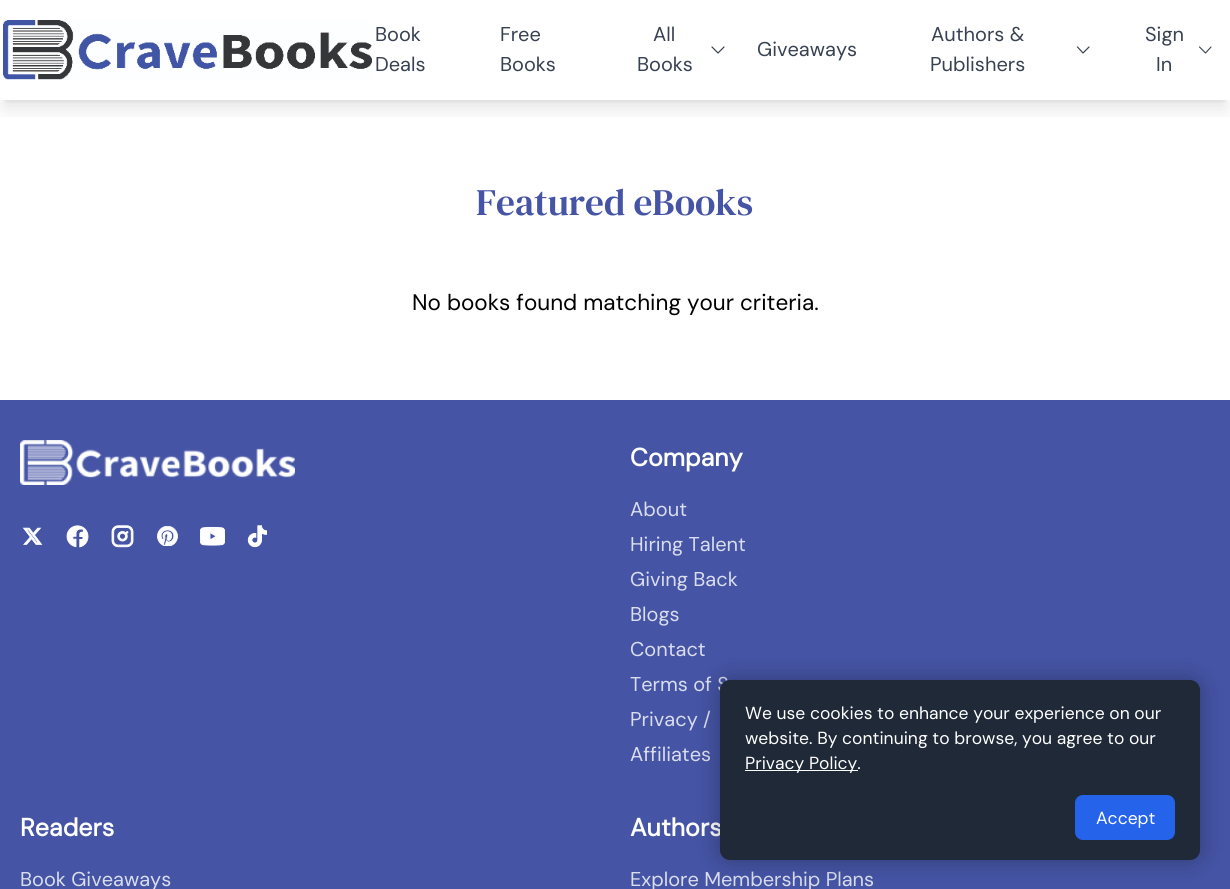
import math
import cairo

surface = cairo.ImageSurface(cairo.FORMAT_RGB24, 1230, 889)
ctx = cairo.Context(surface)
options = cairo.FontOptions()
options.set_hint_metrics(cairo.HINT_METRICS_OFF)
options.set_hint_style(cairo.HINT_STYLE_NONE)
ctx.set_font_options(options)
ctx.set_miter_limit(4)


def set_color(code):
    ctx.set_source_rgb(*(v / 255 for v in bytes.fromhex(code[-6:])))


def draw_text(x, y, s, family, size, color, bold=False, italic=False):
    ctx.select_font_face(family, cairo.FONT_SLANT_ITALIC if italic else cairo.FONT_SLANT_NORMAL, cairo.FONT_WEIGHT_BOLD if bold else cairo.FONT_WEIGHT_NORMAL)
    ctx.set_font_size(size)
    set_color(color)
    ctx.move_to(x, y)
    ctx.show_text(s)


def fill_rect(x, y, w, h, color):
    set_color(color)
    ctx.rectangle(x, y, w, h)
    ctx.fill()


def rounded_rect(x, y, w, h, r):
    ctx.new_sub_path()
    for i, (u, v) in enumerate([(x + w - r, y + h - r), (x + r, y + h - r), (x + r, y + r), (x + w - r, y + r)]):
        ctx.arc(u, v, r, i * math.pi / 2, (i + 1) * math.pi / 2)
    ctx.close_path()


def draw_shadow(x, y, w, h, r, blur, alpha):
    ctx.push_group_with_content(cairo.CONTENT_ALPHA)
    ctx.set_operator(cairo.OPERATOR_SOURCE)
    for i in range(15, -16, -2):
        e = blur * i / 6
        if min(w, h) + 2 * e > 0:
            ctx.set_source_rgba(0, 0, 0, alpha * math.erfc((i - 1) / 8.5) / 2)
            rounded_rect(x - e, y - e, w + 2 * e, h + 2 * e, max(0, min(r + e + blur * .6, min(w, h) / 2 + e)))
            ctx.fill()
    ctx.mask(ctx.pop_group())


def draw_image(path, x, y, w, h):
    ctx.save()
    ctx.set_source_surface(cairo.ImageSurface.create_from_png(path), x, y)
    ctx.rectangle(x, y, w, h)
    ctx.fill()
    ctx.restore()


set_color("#ffffff")
ctx.paint()
ctx.save()
ctx.rectangle(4, 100, 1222, 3)
ctx.clip()
set_color("#000000")
draw_shadow(5, 10, 1220, 90, 0, 4, 0.1)
ctx.restore()
ctx.save()
ctx.rectangle(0, 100, 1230, 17)
ctx.clip()
set_color("#000000")
draw_shadow(4, 16, 1222, 93, 0, 9.5, 0.1)
ctx.restore()
draw_image("assets/img1.png", 3, 20, 369, 60)
draw_text(375, 41, "Book", "DM Sans", 20, "#374151")
draw_text(375, 71, "Deals", "DM Sans", 20, "#374151")
draw_text(500, 41, "Free", "DM Sans", 20, "#374151")
draw_text(500, 71, "Books", "DM Sans", 20, "#374151")
draw_text(653, 41, "All", "DM Sans", 20, "#374151")
ctx.new_path()
ctx.move_to(724, 47)
ctx.line_to(718, 53)
ctx.line_to(712, 47)
ctx.set_line_width(1.2)
ctx.set_line_cap(cairo.LINE_CAP_ROUND)
ctx.set_line_join(cairo.LINE_JOIN_ROUND)
ctx.stroke()
draw_text(637, 71, "Books", "DM Sans", 20, "#374151")
draw_text(757, 56, "Giveaways", "DM Sans", 20, "#374151")
draw_text(931, 41, "Authors &", "DM Sans", 20, "#374151")
ctx.new_path()
ctx.move_to(1089, 47)
ctx.line_to(1083, 53)
ctx.line_to(1077.5, 47)
ctx.stroke()
draw_text(930, 71, "Publishers", "DM Sans", 20, "#374151")
draw_text(1145, 41, "Sign", "DM Sans", 20, "#374151")
ctx.new_path()
ctx.move_to(1211, 47)
ctx.line_to(1205.5, 53)
ctx.line_to(1199.5, 47)
ctx.set_line_width(1.1)
ctx.stroke()
draw_text(1156, 71, "In", "DM Sans", 20, "#374151")
draw_text(476, 215, "Featured eBooks", "DM Serif Text", 37.5, "#4554a5")
draw_text(412, 310, "No books found matching your criteria.", "DM Sans", 22.5, "#000000")
fill_rect(0, 400, 1230, 489, "#4554a5")
draw_image("assets/img2.png", 20, 440, 275, 45)
draw_image("assets/img3.png", 22, 527, 21, 18)
draw_image("assets/img4.png", 66, 525, 23, 23)
draw_image("assets/img5.png", 111, 525, 23, 23)
draw_image("assets/img6.png", 157, 526, 21, 20)
draw_image("assets/img7.png", 200, 526, 25, 20)
draw_image("assets/img8.png", 247, 525, 20, 23)
draw_text(630, 466, "Company", "DM Sans", 25, "#ffffff", bold=True)
draw_text(630, 516, "About", "DM Sans", 20, "#dadded")
draw_text(630, 551, "Hiring Talent", "DM Sans", 20, "#dadded")
draw_text(630, 586, "Giving Back", "DM Sans", 20, "#dadded")
draw_text(630, 621, "Blogs", "DM Sans", 20, "#dadded")
draw_text(630, 656, "Contact", "DM Sans", 20, "#dadded")
draw_text(630, 691, "Terms of S", "DM Sans", 20, "#dadded")
draw_text(630, 726, "Privacy /", "DM Sans", 20, "#dadded")
draw_text(630, 761, "Affiliates", "DM Sans", 20, "#dadded")
draw_text(20, 836, "Readers", "DM Sans", 25, "#ffffff", bold=True)
draw_text(20, 886, "Book Giveaways", "DM Sans", 20, "#dadded")
draw_text(630, 836, "Authors", "DM Sans", 25, "#ffffff", bold=True)
draw_text(630, 886, "Explore Membership Plans", "DM Sans", 20, "#dadded")
set_color("#000000")
draw_shadow(720, 680, 480, 180, 10, 12.5, 0.3)
set_color("#1f2937")
rounded_rect(720, 680, 480, 180, 10)
ctx.fill()
draw_text(745, 719, "We use cookies to enhance your experience on our", "DM Sans", 17.5, "#ffffff")
draw_text(745, 744, "website. By continuing to browse, you agree to our", "DM Sans", 17.5, "#ffffff")
fill_rect(745, 770, 113, 1, "#ffffff")
draw_text(745, 769, "Privacy Policy.", "DM Sans", 17.5, "#ffffff")
set_color("#2563eb")
rounded_rect(1075, 795, 100, 45, 8)
ctx.fill()
draw_text(1096, 824, "Accept", "DM Sans", 17.5, "#ffffff")
surface.write_to_png("output.png")
